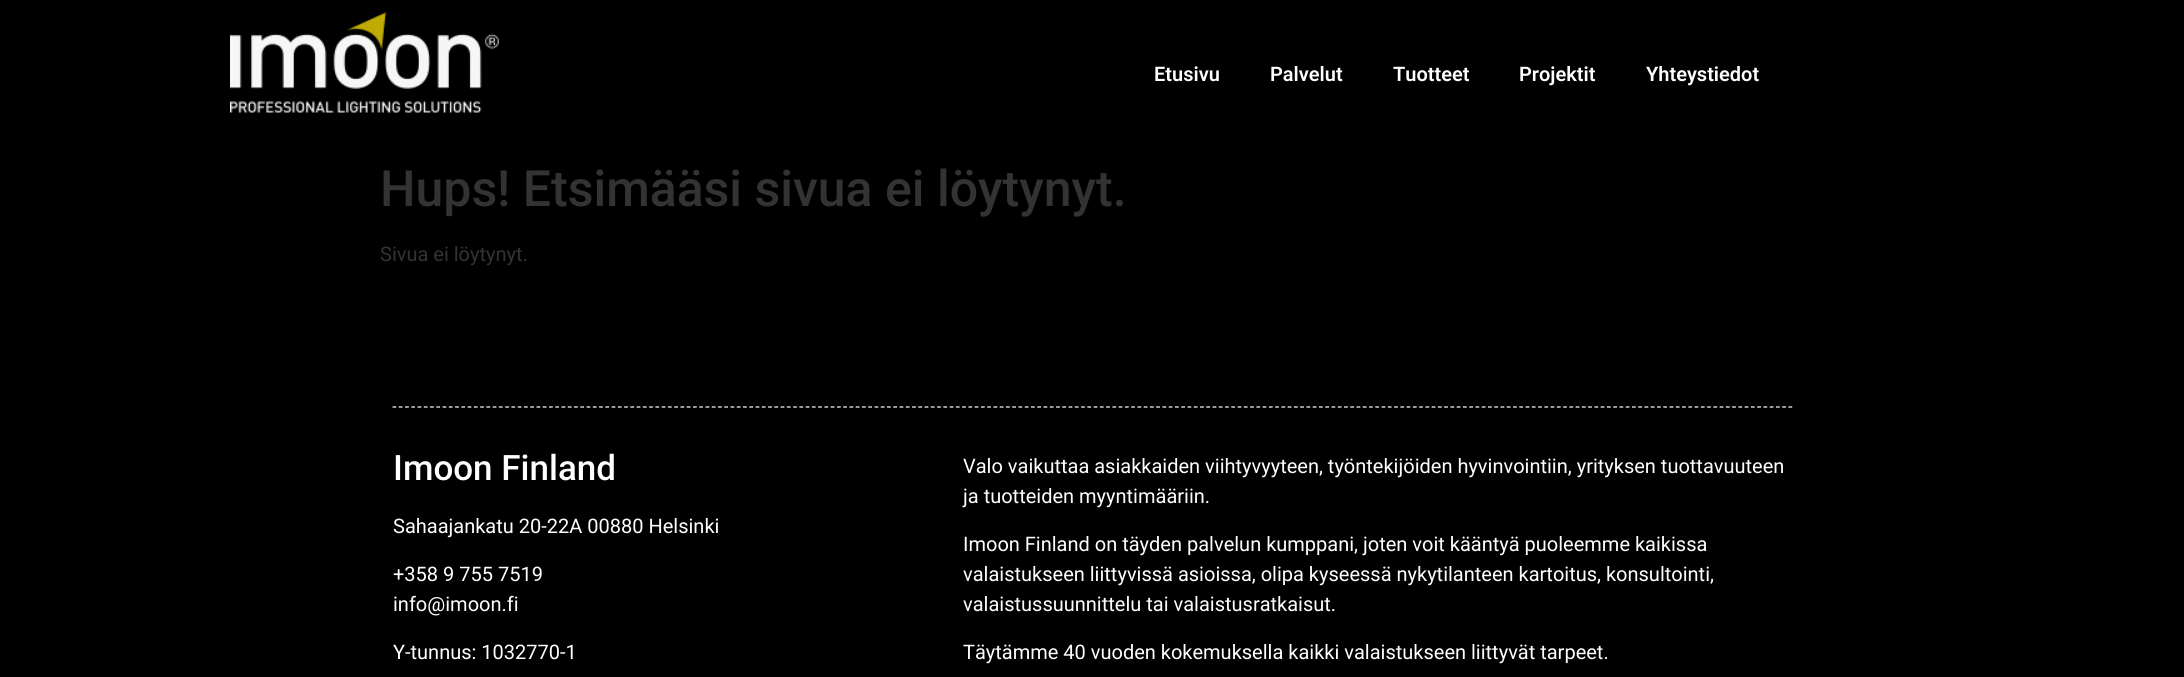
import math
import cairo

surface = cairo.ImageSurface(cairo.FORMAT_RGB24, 2184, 677)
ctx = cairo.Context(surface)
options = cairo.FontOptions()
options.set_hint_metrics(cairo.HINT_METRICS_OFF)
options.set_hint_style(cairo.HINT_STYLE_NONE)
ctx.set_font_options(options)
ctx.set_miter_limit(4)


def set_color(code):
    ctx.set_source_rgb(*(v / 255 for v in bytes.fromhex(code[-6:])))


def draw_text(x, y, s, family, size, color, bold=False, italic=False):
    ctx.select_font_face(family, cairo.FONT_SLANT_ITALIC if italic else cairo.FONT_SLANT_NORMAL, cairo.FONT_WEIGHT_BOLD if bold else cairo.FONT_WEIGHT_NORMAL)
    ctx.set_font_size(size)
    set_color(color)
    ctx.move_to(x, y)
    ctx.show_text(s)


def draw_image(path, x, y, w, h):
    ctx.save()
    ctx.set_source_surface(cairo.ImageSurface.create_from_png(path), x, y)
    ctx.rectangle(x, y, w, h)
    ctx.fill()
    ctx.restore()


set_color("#000000")
ctx.paint()
draw_image("assets/img1.png", 230, 12, 269, 101)
draw_text(1154, 81, "Etusivu", "Roboto SemiBold", 20, "#ffffff")
draw_text(1270, 81, "Palvelut", "Roboto SemiBold", 20, "#ffffff")
draw_text(1393, 81, "Tuotteet", "Roboto SemiBold", 20, "#ffffff")
draw_text(1519, 81, "Projektit", "Roboto SemiBold", 20, "#ffffff")
draw_text(1646, 81, "Yhteystiedot", "Roboto SemiBold", 20, "#ffffff")
draw_text(380, 206, "Hups! Etsimääsi sivua ei löytynyt.", "Roboto Medium", 50, "#333333")
draw_text(380, 261, "Sivua ei löytynyt.", "Roboto", 20, "#333333")
ctx.new_path()
ctx.move_to(392.5, 407)
ctx.line_to(1792.5, 407)
set_color("#ffffff")
ctx.set_line_width(1.2)
ctx.set_dash([3.75, 2.51])
ctx.stroke()
draw_text(393, 480, "Imoon Finland", "Roboto Medium", 35, "#ffffff")
draw_text(393, 533, "Sahaajankatu 20-22A 00880 Helsinki", "Roboto", 20, "#ffffff")
draw_text(393, 581, "+358 9 755 7519", "Roboto", 20, "#ffffff")
draw_text(393, 611, "info@imoon.fi", "Roboto", 20, "#ffffff")
draw_text(393, 659, "Y-tunnus: 1032770-1", "Roboto", 20, "#ffffff")
draw_text(963, 473, "Valo vaikuttaa asiakkaiden viihtyvyyteen, työntekijöiden hyvinvointiin, yrityksen tuottavuuteen", "Roboto", 20, "#ffffff")
draw_text(963, 503, "ja tuotteiden myyntimääriin.", "Roboto", 20, "#ffffff")
draw_text(963, 551, "Imoon Finland on täyden palvelun kumppani, joten voit kääntyä puoleemme kaikissa", "Roboto", 20, "#ffffff")
draw_text(963, 581, "valaistukseen liittyvissä asioissa, olipa kyseessä nykytilanteen kartoitus, konsultointi,", "Roboto", 20, "#ffffff")
draw_text(963, 611, "valaistussuunnittelu tai valaistusratkaisut.", "Roboto", 20, "#ffffff")
draw_text(963, 659, "Täytämme 40 vuoden kokemuksella kaikki valaistukseen liittyvät tarpeet.", "Roboto", 20, "#ffffff")
surface.write_to_png("output.png")
